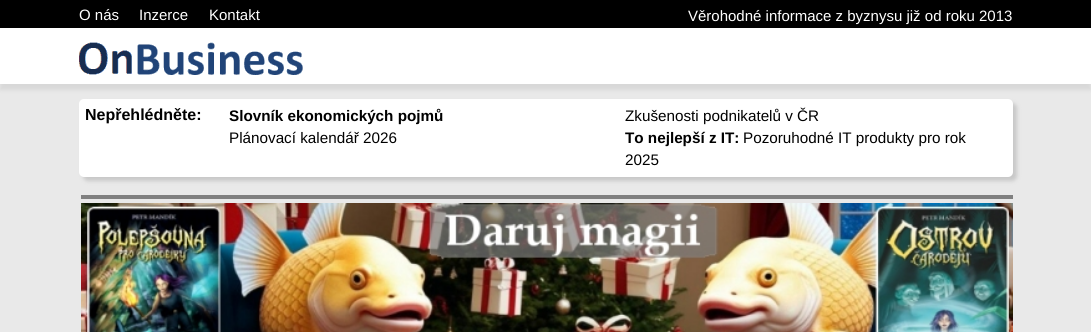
import math
import cairo

surface = cairo.ImageSurface(cairo.FORMAT_RGB24, 1091, 332)
ctx = cairo.Context(surface)
options = cairo.FontOptions()
options.set_hint_metrics(cairo.HINT_METRICS_OFF)
options.set_hint_style(cairo.HINT_STYLE_NONE)
ctx.set_font_options(options)
ctx.set_miter_limit(4)


def set_color(code):
    ctx.set_source_rgb(*(v / 255 for v in bytes.fromhex(code[-6:])))


def draw_text(x, y, s, family, size, color, bold=False, italic=False):
    ctx.select_font_face(family, cairo.FONT_SLANT_ITALIC if italic else cairo.FONT_SLANT_NORMAL, cairo.FONT_WEIGHT_BOLD if bold else cairo.FONT_WEIGHT_NORMAL)
    ctx.set_font_size(size)
    set_color(color)
    ctx.move_to(x, y)
    ctx.show_text(s)


def fill_rect(x, y, w, h, color):
    set_color(color)
    ctx.rectangle(x, y, w, h)
    ctx.fill()


def rounded_rect(x, y, w, h, r):
    ctx.new_sub_path()
    for i, (u, v) in enumerate([(x + w - r, y + h - r), (x + r, y + h - r), (x + r, y + r), (x + w - r, y + r)]):
        ctx.arc(u, v, r, i * math.pi / 2, (i + 1) * math.pi / 2)
    ctx.close_path()


def draw_shadow(x, y, w, h, r, blur, alpha):
    ctx.push_group_with_content(cairo.CONTENT_ALPHA)
    ctx.set_operator(cairo.OPERATOR_SOURCE)
    for i in range(15, -16, -2):
        e = blur * i / 6
        if min(w, h) + 2 * e > 0:
            ctx.set_source_rgba(0, 0, 0, alpha * math.erfc((i - 1) / 8.5) / 2)
            rounded_rect(x - e, y - e, w + 2 * e, h + 2 * e, max(0, min(r + e + blur * .6, min(w, h) / 2 + e)))
            ctx.fill()
    ctx.mask(ctx.pop_group())


def draw_image(path, x, y, w, h):
    ctx.save()
    ctx.set_source_surface(cairo.ImageSurface.create_from_png(path), x, y)
    ctx.rectangle(x, y, w, h)
    ctx.fill()
    ctx.restore()


set_color("#e9e9e9")
ctx.paint()
set_color("#d8d8d8")
draw_shadow(0, 34, 1091, 56, 0, 2, 1)
fill_rect(0, 0, 1091, 28, "#000000")
draw_text(79, 20, "O nás", "Liberation Sans", 15, "#ffffff")
draw_text(139, 20, "Inzerce", "Liberation Sans", 15, "#ffffff")
draw_text(209, 20, "Kontakt", "Liberation Sans", 15, "#ffffff")
draw_text(688, 21, "Věrohodné informace z byznysu již od roku 2013", "Liberation Sans", 15, "#ffffff")
fill_rect(0, 28, 1091, 56, "#ffffff")
draw_image("assets/img1.png", 79, 42, 224, 33)
set_color("#c8c8c8")
draw_shadow(83, 103, 934, 78, 5, 2, 1)
set_color("#ffffff")
rounded_rect(79, 99, 934, 78, 5)
ctx.fill()
draw_text(85, 120, "Nepřehlédněte:", "Liberation Sans", 16, "#000000", bold=True)
draw_text(229, 121, "Slovník ekonomických pojmů", "Liberation Sans", 15.25, "#000000", bold=True)
draw_text(229, 143, "Plánovací kalendář 2026", "Liberation Sans", 15.25, "#000000")
draw_text(625, 121, "Zkušenosti podnikatelů v ČR", "Liberation Sans", 15.25, "#000000")
draw_text(625, 143, "To nejlepší z IT:", "Liberation Sans", 15.25, "#000000", bold=True)
draw_text(743, 143, "Pozoruhodné IT produkty pro rok", "Liberation Sans", 15.25, "#000000")
draw_text(625, 165, "2025", "Liberation Sans", 15.25, "#000000")
fill_rect(81, 195, 932, 4, "#808080")
draw_image("assets/img2.png", 81, 203, 932, 129)
surface.write_to_png("output.png")
